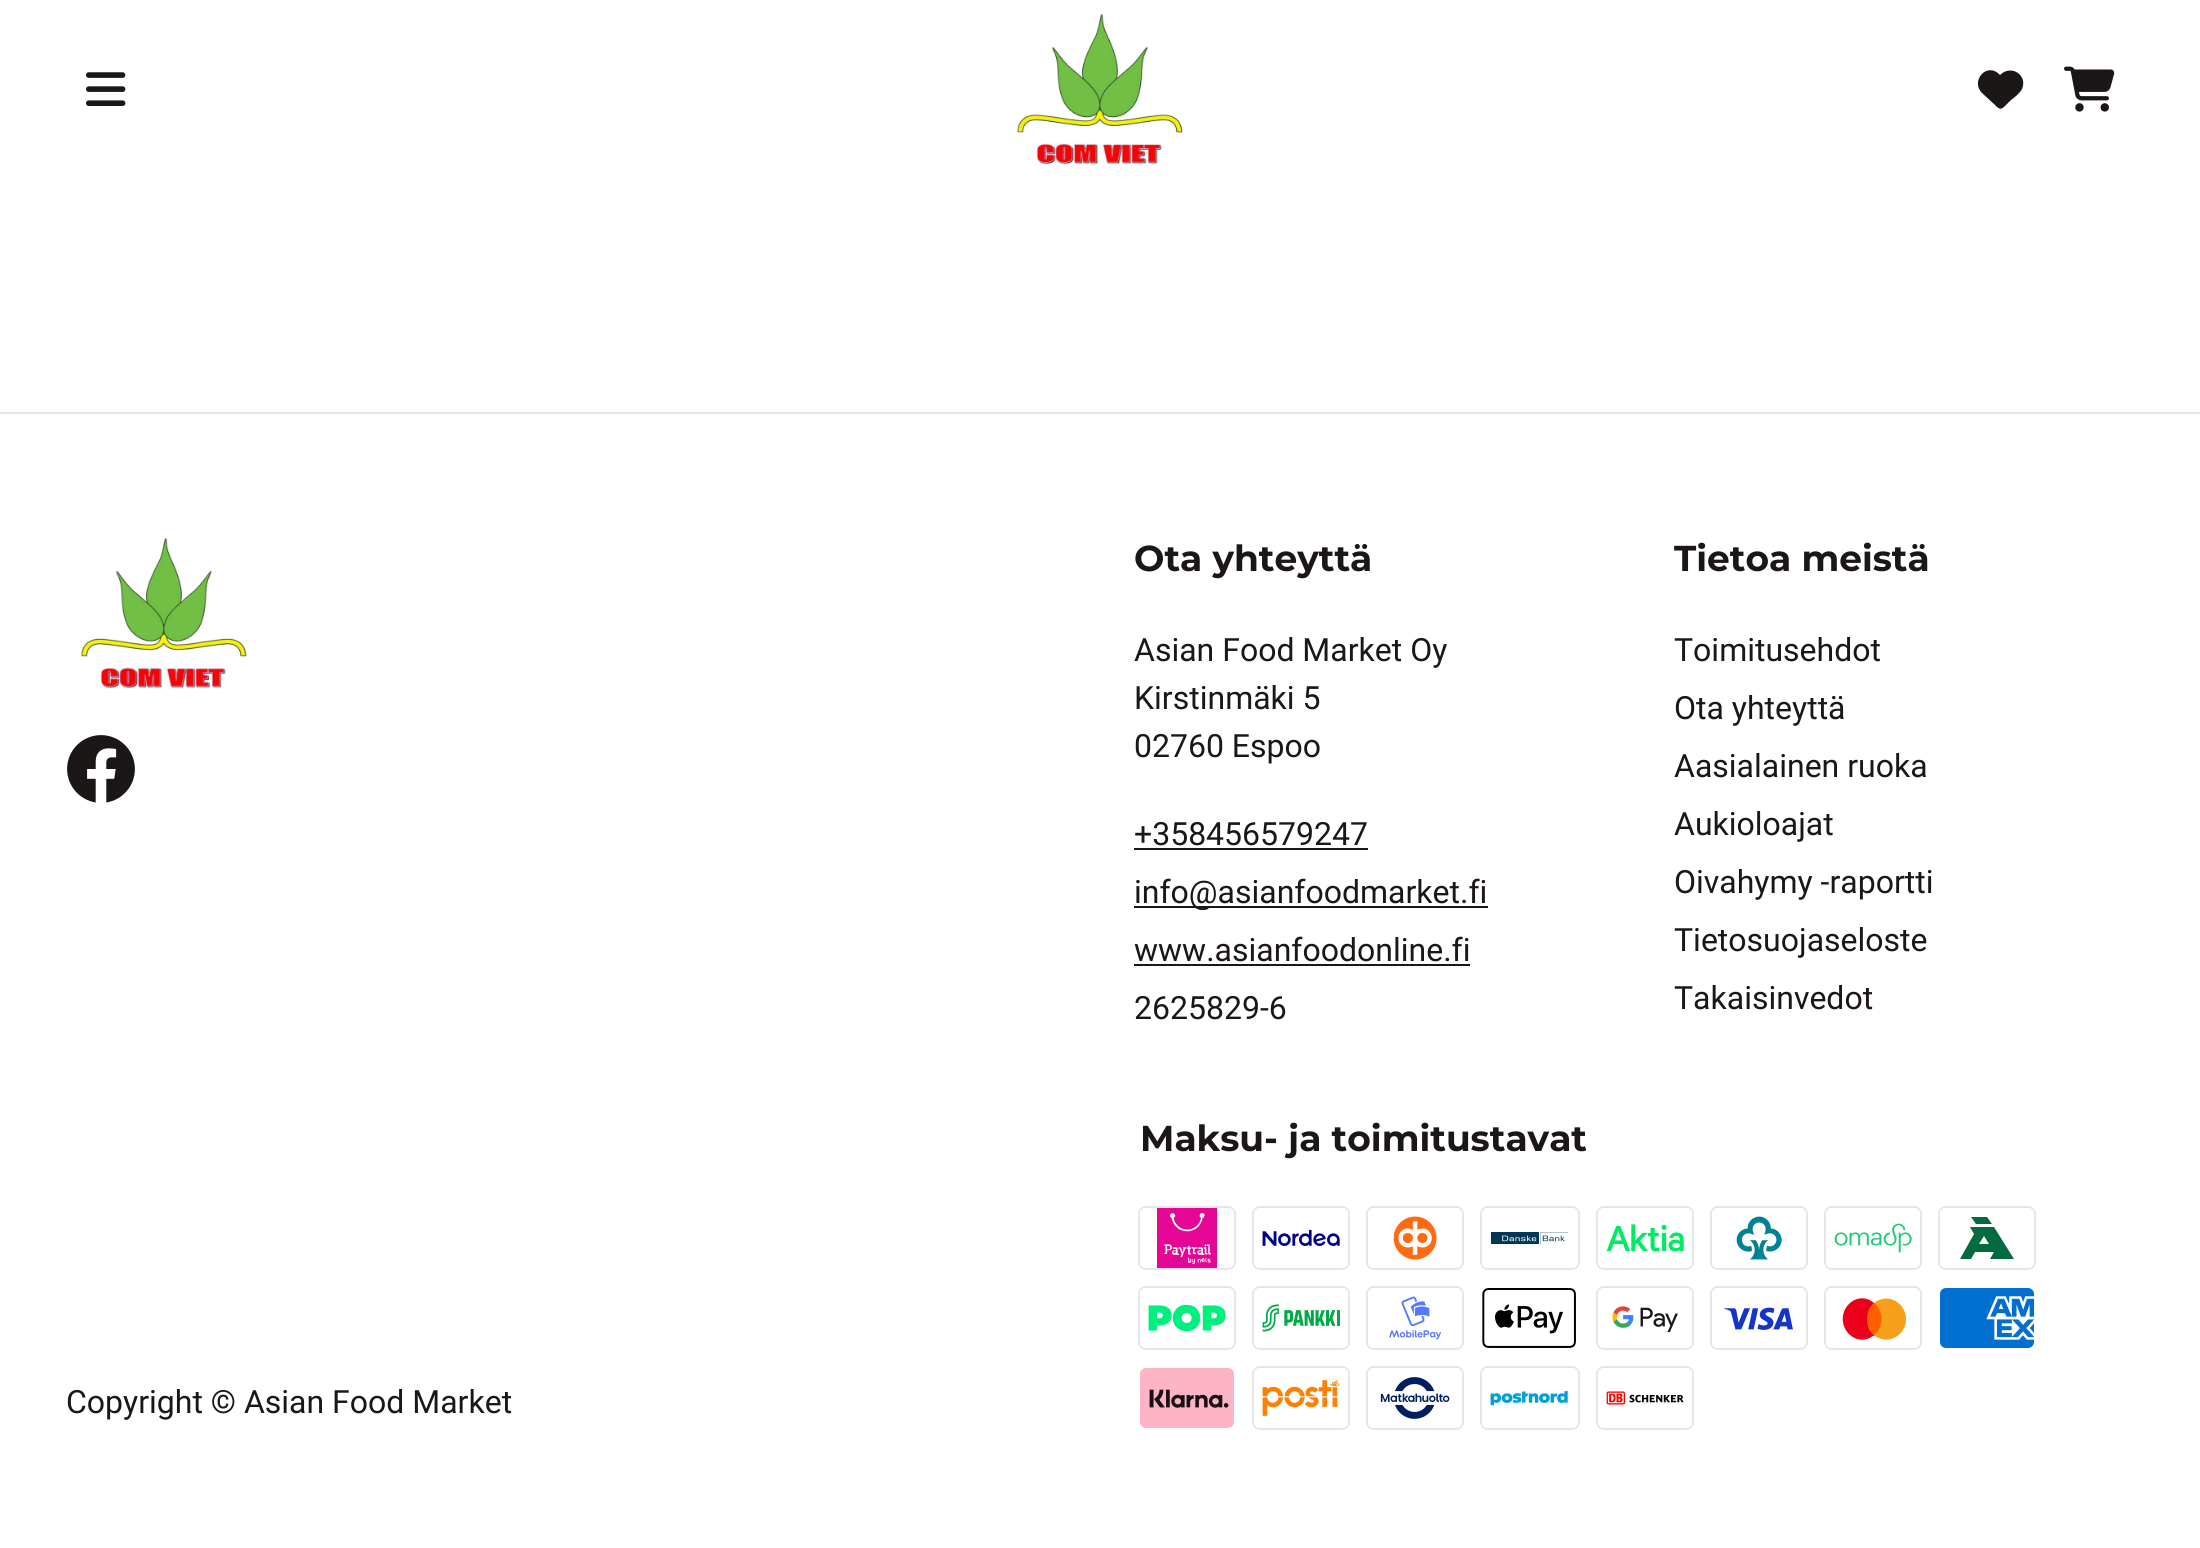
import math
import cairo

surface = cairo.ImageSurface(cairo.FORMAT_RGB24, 2200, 1548)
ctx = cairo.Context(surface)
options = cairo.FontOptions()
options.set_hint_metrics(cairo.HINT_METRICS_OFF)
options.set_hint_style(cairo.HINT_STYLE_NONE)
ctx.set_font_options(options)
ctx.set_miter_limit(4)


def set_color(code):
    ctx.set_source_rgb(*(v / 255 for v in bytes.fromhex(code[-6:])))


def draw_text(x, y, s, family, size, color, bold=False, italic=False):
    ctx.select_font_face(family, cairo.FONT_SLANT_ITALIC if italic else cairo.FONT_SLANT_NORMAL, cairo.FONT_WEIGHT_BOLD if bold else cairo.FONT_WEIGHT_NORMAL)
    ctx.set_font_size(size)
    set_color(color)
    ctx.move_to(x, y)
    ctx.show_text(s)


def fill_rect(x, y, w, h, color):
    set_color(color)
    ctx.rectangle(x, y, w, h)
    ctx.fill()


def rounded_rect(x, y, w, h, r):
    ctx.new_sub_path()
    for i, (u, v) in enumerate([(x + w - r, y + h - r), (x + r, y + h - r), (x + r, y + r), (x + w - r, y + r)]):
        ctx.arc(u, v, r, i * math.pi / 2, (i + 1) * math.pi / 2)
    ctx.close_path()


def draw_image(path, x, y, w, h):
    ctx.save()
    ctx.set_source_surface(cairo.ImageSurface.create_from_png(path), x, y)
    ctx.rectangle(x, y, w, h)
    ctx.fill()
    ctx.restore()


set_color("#ffffff")
ctx.paint()
draw_image("assets/img1.png", 86, 72, 40, 34)
draw_image("assets/img2.png", 1017, 14, 166, 151)
set_color("#1c1717")
ctx.new_path()
ctx.move_to(1982, 93)
ctx.line_to(1998, 108)
ctx.line_to(1982, 93)
ctx.line_to(1995, 105)
ctx.curve_to(2000, 110, 2001, 110, 2006, 105)
ctx.line_to(2011, 100)
ctx.curve_to(2015, 97, 2020, 93, 2022, 89)
ctx.curve_to(2028, 75, 2011, 64, 2000, 75)
ctx.curve_to(1987, 61, 1970, 81, 1982, 93)
ctx.close_path()
ctx.fill()
draw_image("assets/img3.png", 2064, 66, 51, 46)
fill_rect(0, 412, 2200, 2, "#e6e6e6")
draw_image("assets/img4.png", 81, 538, 166, 151)
draw_image("assets/img5.png", 67, 735, 68, 68)
draw_text(1134, 571, "Ota yhteyttä", "Montserrat", 36, "#1c1717", bold=True)
draw_text(1134, 661, "Asian Food Market Oy", "Roboto", 32, "#1c1717")
draw_text(1134, 709, "Kirstinmäki 5", "Roboto", 32, "#1c1717")
draw_text(1134, 757, "02760 Espoo", "Roboto", 32, "#1c1717")
draw_text(1134, 845, "+358456579247", "Roboto", 32, "#1c1717")
fill_rect(1134, 848, 234, 2, "#1c1717")
fill_rect(1134, 906, 354, 2, "#1c1717")
draw_text(1134, 903, "info@asianfoodmarket.fi", "Roboto", 32, "#1c1717")
draw_text(1134, 961, "www.asianfoodonline.fi", "Roboto", 32, "#1c1717")
fill_rect(1134, 964, 336, 2, "#1c1717")
draw_text(1134, 1019, "2625829-6", "Roboto", 32, "#1c1717")
draw_text(1674, 571, "Tietoa meistä", "Montserrat", 36, "#1c1717", bold=True)
draw_text(1674, 661, "Toimitusehdot", "Roboto", 32, "#1c1717")
draw_text(1674, 719, "Ota yhteyttä", "Roboto", 32, "#1c1717")
draw_text(1674, 777, "Aasialainen ruoka", "Roboto", 32, "#1c1717")
draw_text(1674, 835, "Aukioloajat", "Roboto", 32, "#1c1717")
draw_text(1674, 893, "Oivahymy -raportti", "Roboto", 32, "#1c1717")
draw_text(1674, 951, "Tietosuojaseloste", "Roboto", 32, "#1c1717")
draw_text(1674, 1009, "Takaisinvedot", "Roboto", 32, "#1c1717")
draw_text(1140, 1151, "Maksu- ja toimitustavat", "Montserrat", 36, "#1c1717", bold=True)
rounded_rect(1139, 1207, 96, 62, 7)
set_color("#e6e6e6")
ctx.stroke()
set_color("#ffffff")
rounded_rect(1140, 1208, 94, 60, 6)
ctx.fill()
draw_image("assets/img6.png", 1157, 1208, 60, 60)
rounded_rect(1253, 1207, 96, 62, 7)
set_color("#e6e6e6")
ctx.stroke()
set_color("#ffffff")
rounded_rect(1254, 1208, 94, 60, 6)
ctx.fill()
draw_image("assets/img7.png", 1262, 1229, 78, 17)
rounded_rect(1367, 1207, 96, 62, 7)
set_color("#e6e6e6")
ctx.stroke()
set_color("#ffffff")
rounded_rect(1368, 1208, 94, 60, 6)
ctx.fill()
draw_image("assets/img8.png", 1393, 1216, 44, 44)
rounded_rect(1481, 1207, 98, 62, 7)
set_color("#e6e6e6")
ctx.stroke()
set_color("#ffffff")
rounded_rect(1482, 1208, 96, 60, 6)
ctx.fill()
draw_image("assets/img9.png", 1491, 1232, 77, 12)
rounded_rect(1597, 1207, 96, 62, 7)
set_color("#e6e6e6")
ctx.stroke()
set_color("#ffffff")
rounded_rect(1598, 1208, 94, 60, 6)
ctx.fill()
draw_image("assets/img10.png", 1606, 1224, 78, 28)
rounded_rect(1711, 1207, 96, 62, 7)
set_color("#e6e6e6")
ctx.stroke()
set_color("#ffffff")
rounded_rect(1712, 1208, 94, 60, 6)
ctx.fill()
draw_image("assets/img11.png", 1736, 1216, 46, 44)
rounded_rect(1825, 1207, 96, 62, 7)
set_color("#e6e6e6")
ctx.stroke()
set_color("#ffffff")
rounded_rect(1826, 1208, 94, 60, 6)
ctx.fill()
draw_image("assets/img12.png", 1834, 1223, 78, 30)
rounded_rect(1939, 1207, 96, 62, 7)
set_color("#e6e6e6")
ctx.stroke()
set_color("#ffffff")
rounded_rect(1940, 1208, 94, 60, 6)
ctx.fill()
set_color("#046a40")
ctx.new_path()
ctx.move_to(2014, 1259)
ctx.line_to(1994, 1227)
ctx.line_to(1970, 1227)
ctx.line_to(1974, 1234)
ctx.line_to(1960, 1259)
ctx.line_to(1971, 1259)
ctx.line_to(1975, 1252)
ctx.line_to(1994, 1252)
ctx.line_to(1990, 1259)
ctx.close_path()
ctx.move_to(1989, 1244)
ctx.line_to(1979, 1244)
ctx.line_to(1984, 1236)
ctx.close_path()
ctx.move_to(1976, 1224)
ctx.line_to(1971, 1217)
ctx.line_to(1987, 1217)
ctx.line_to(1992, 1224)
ctx.close_path()
ctx.fill()
rounded_rect(1139, 1287, 96, 62, 7)
set_color("#e6e6e6")
ctx.stroke()
set_color("#ffffff")
rounded_rect(1140, 1288, 94, 60, 6)
ctx.fill()
draw_image("assets/img13.png", 1148, 1304, 78, 28)
rounded_rect(1253, 1287, 96, 62, 7)
set_color("#e6e6e6")
ctx.stroke()
set_color("#ffffff")
rounded_rect(1254, 1288, 94, 60, 6)
ctx.fill()
draw_image("assets/img14.png", 1262, 1304, 78, 28)
rounded_rect(1367, 1287, 96, 62, 7)
set_color("#e6e6e6")
ctx.stroke()
set_color("#ffffff")
rounded_rect(1368, 1288, 94, 60, 6)
ctx.fill()
draw_image("assets/img15.png", 1389, 1296, 53, 44)
draw_image("assets/img16.png", 1482, 1288, 94, 60)
rounded_rect(1597, 1287, 96, 62, 7)
set_color("#e6e6e6")
ctx.stroke()
set_color("#ffffff")
rounded_rect(1598, 1288, 94, 60, 6)
ctx.fill()
draw_image("assets/img17.png", 1612, 1306, 66, 27)
rounded_rect(1711, 1287, 96, 62, 7)
set_color("#e6e6e6")
ctx.stroke()
set_color("#ffffff")
rounded_rect(1712, 1288, 94, 60, 6)
ctx.fill()
draw_image("assets/img18.png", 1724, 1307, 69, 23)
rounded_rect(1825, 1287, 96, 62, 7)
set_color("#e6e6e6")
ctx.stroke()
set_color("#ffffff")
rounded_rect(1826, 1288, 94, 60, 6)
ctx.fill()
fill_rect(1867, 1303, 15, 33, "#ff5f00")
set_color("#eb001b")
ctx.new_path()
ctx.move_to(1867, 1319)
ctx.curve_to(1867, 1313, 1869, 1307, 1874, 1303)
ctx.curve_to(1866, 1296, 1855, 1297, 1848, 1305)
ctx.curve_to(1841, 1313, 1841, 1325, 1848, 1333)
ctx.curve_to(1855, 1341, 1866, 1342, 1874, 1335)
ctx.curve_to(1869, 1332, 1867, 1326, 1867, 1319)
ctx.close_path()
ctx.fill()
set_color("#f79e1b")
ctx.new_path()
ctx.move_to(1906, 1319)
ctx.curve_to(1906, 1336, 1887, 1346, 1874, 1335)
ctx.curve_to(1884, 1327, 1884, 1311, 1874, 1303)
ctx.curve_to(1888, 1292, 1906, 1303, 1906, 1319)
ctx.close_path()
ctx.fill()
draw_image("assets/img19.png", 1940, 1288, 94, 60)
draw_image("assets/img20.png", 1140, 1368, 94, 60)
rounded_rect(1253, 1367, 96, 62, 7)
set_color("#e6e6e6")
ctx.stroke()
set_color("#ffffff")
rounded_rect(1254, 1368, 94, 60, 6)
ctx.fill()
draw_image("assets/img21.png", 1262, 1380, 78, 36)
rounded_rect(1367, 1367, 96, 62, 7)
set_color("#e6e6e6")
ctx.stroke()
set_color("#ffffff")
rounded_rect(1368, 1368, 94, 60, 6)
ctx.fill()
draw_image("assets/img22.png", 1380, 1377, 70, 42)
rounded_rect(1481, 1367, 98, 62, 7)
set_color("#e6e6e6")
ctx.stroke()
set_color("#ffffff")
rounded_rect(1482, 1368, 96, 60, 6)
ctx.fill()
draw_image("assets/img23.png", 1490, 1390, 78, 16)
rounded_rect(1597, 1367, 96, 62, 7)
set_color("#e6e6e6")
ctx.stroke()
set_color("#ffffff")
rounded_rect(1598, 1368, 94, 60, 6)
ctx.fill()
draw_image("assets/img24.png", 1606, 1391, 78, 14)
draw_text(66, 1413, "Copyright © Asian Food Market", "Roboto", 32, "#1c1717")
surface.write_to_png("output.png")
